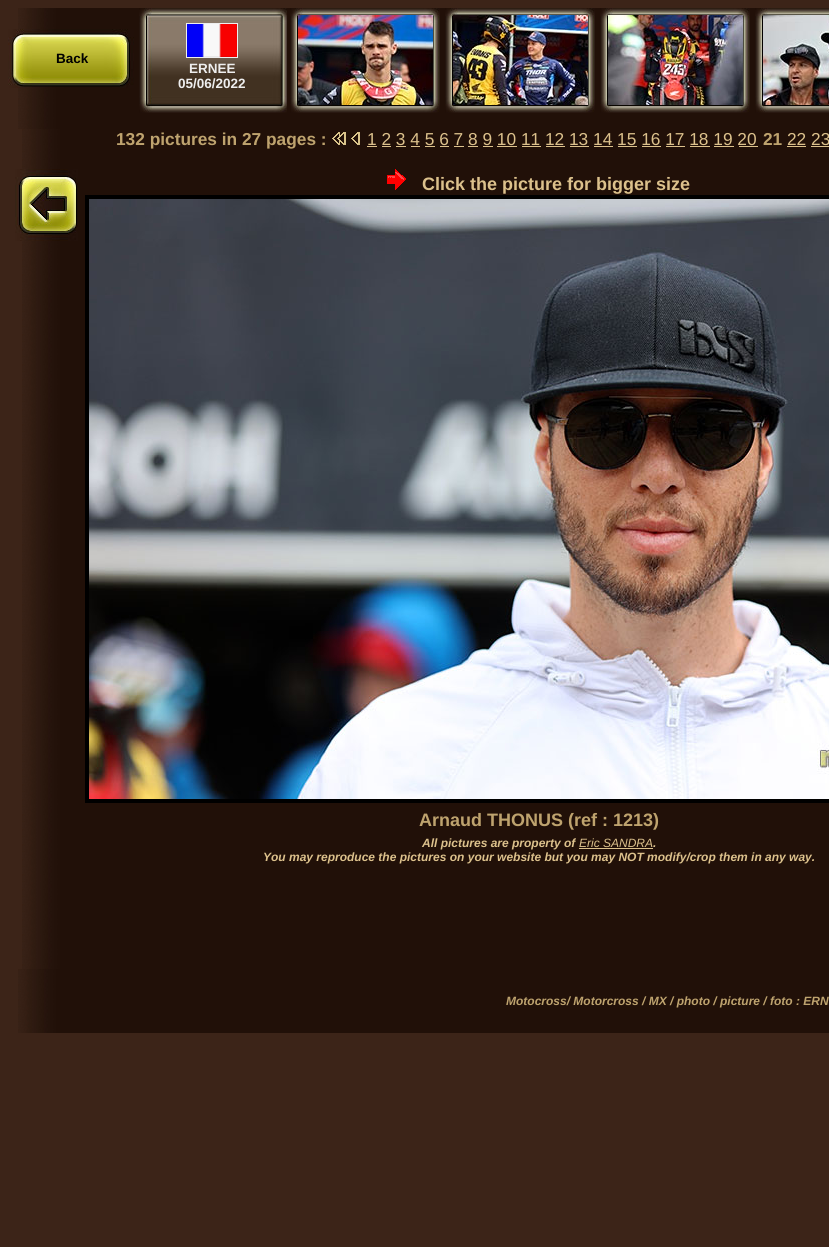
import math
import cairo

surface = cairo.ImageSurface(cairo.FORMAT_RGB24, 829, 1247)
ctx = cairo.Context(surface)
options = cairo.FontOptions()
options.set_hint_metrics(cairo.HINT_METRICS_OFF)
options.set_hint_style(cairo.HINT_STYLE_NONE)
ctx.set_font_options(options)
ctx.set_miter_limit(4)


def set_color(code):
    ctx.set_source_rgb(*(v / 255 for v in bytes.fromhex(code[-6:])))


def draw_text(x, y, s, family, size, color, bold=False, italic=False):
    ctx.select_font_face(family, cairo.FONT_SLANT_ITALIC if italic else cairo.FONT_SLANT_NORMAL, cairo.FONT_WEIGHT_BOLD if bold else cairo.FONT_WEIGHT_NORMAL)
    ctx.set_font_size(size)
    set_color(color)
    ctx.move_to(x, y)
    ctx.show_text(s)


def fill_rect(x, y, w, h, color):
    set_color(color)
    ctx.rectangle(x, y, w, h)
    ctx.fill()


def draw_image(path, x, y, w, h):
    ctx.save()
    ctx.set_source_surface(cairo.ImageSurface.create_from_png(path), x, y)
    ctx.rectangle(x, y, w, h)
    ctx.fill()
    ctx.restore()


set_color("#3c2418")
ctx.paint()
draw_image("assets/img1.png", 18, 8, 811, 121)
draw_image("assets/img2.png", 8, 29, 126, 59)
draw_text(56, 63, "Back", "Liberation Sans", 13.5, "#000000", bold=True)
draw_image("assets/img3.png", 290, 8, 150, 105)
draw_image("assets/img4.png", 298, 15, 135, 90)
draw_image("assets/img3.png", 445, 8, 150, 105)
draw_image("assets/img5.png", 453, 15, 135, 90)
draw_image("assets/img3.png", 600, 8, 150, 105)
draw_image("assets/img6.png", 608, 15, 135, 90)
draw_image("assets/img7.png", 755, 8, 74, 105)
draw_image("assets/img8.png", 763, 15, 66, 90)
draw_image("assets/img9.png", 139, 8, 148, 105)
ctx.rectangle(186.5, 23.5, 51, 34)
set_color("#eeeeee")
ctx.set_line_width(1)
ctx.stroke()
draw_image("assets/img10.png", 187, 24, 50, 33)
draw_text(189, 73, "ERNEE", "Liberation Sans", 13.5, "#eeeeee", bold=True)
draw_text(178, 88, "05/06/2022", "Liberation Sans", 13.5, "#eeeeee", bold=True)
draw_image("assets/img11.png", 22, 129, 807, 40)
draw_text(116, 145, "132 pictures in 27 pages :", "Liberation Sans", 17.3, "#bea36e", bold=True)
draw_image("assets/img12.png", 332, 132, 14, 13)
draw_image("assets/img13.png", 351, 132, 9, 13)
draw_text(367, 145, "1 2 3 4 5 6 7 8 9 10 11 12 13 14 15 16 17 18 19 20", "Liberation Sans", 17.3, "#dcc18c")
fill_rect(367, 146, 10, 1, "#dcc18c")
draw_text(763, 145, "21", "Liberation Sans", 17.3, "#bea36e", bold=True)
draw_text(787, 145, "22 23", "Liberation Sans", 17.3, "#dcc18c")
fill_rect(787, 146, 19, 1, "#dcc18c")
fill_rect(382, 146, 9, 1, "#dcc18c")
fill_rect(396, 146, 10, 1, "#dcc18c")
fill_rect(411, 146, 9, 1, "#dcc18c")
fill_rect(425, 146, 10, 1, "#dcc18c")
fill_rect(440, 146, 9, 1, "#dcc18c")
fill_rect(454, 146, 10, 1, "#dcc18c")
fill_rect(468, 146, 10, 1, "#dcc18c")
fill_rect(483, 146, 10, 1, "#dcc18c")
fill_rect(497, 146, 20, 1, "#dcc18c")
fill_rect(522, 146, 19, 1, "#dcc18c")
fill_rect(546, 146, 19, 1, "#dcc18c")
fill_rect(570, 146, 19, 1, "#dcc18c")
fill_rect(594, 146, 19, 1, "#dcc18c")
fill_rect(618, 146, 19, 1, "#dcc18c")
fill_rect(642, 146, 19, 1, "#dcc18c")
fill_rect(666, 146, 19, 1, "#dcc18c")
fill_rect(690, 146, 20, 1, "#dcc18c")
fill_rect(714, 146, 20, 1, "#dcc18c")
fill_rect(739, 146, 19, 1, "#dcc18c")
fill_rect(811, 146, 18, 1, "#dcc18c")
draw_image("assets/img14.png", 22, 169, 807, 800)
draw_image("assets/img15.png", 15, 169, 63, 72)
draw_image("assets/img16.png", 387, 169, 19, 21)
draw_text(422, 190, "Click the picture for bigger size", "Liberation Sans", 18, "#dcc18c", bold=True)
ctx.rectangle(87, 197, 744, 604)
set_color("#000000")
ctx.set_line_width(4)
ctx.stroke()
draw_image("assets/img17.png", 89, 199, 740, 600)
draw_text(419, 826, "Arnaud THONUS (ref : 1213)", "Liberation Sans", 18, "#bea36e", bold=True)
draw_text(422, 847, "All pictures are property of", "Liberation Sans", 12, "#dcc18c", bold=True, italic=True)
draw_text(579, 847, "Eric SANDRA", "Liberation Sans", 12, "#dcc18c", italic=True)
fill_rect(579, 848, 74, 1, "#dcc18c")
draw_text(653, 847, ".", "Liberation Sans", 12, "#dcc18c", bold=True, italic=True)
draw_text(263, 861, "You may reproduce the pictures on your website but you may NOT modify/crop them in any way.", "Liberation Sans", 12, "#dcc18c", bold=True, italic=True)
draw_image("assets/img18.png", 18, 969, 811, 64)
draw_text(506, 1005, "Motocross/ Motorcross / MX / photo / picture / foto : ERN", "Liberation Sans", 12, "#bea36e", bold=True, italic=True)
surface.write_to_png("output.png")
